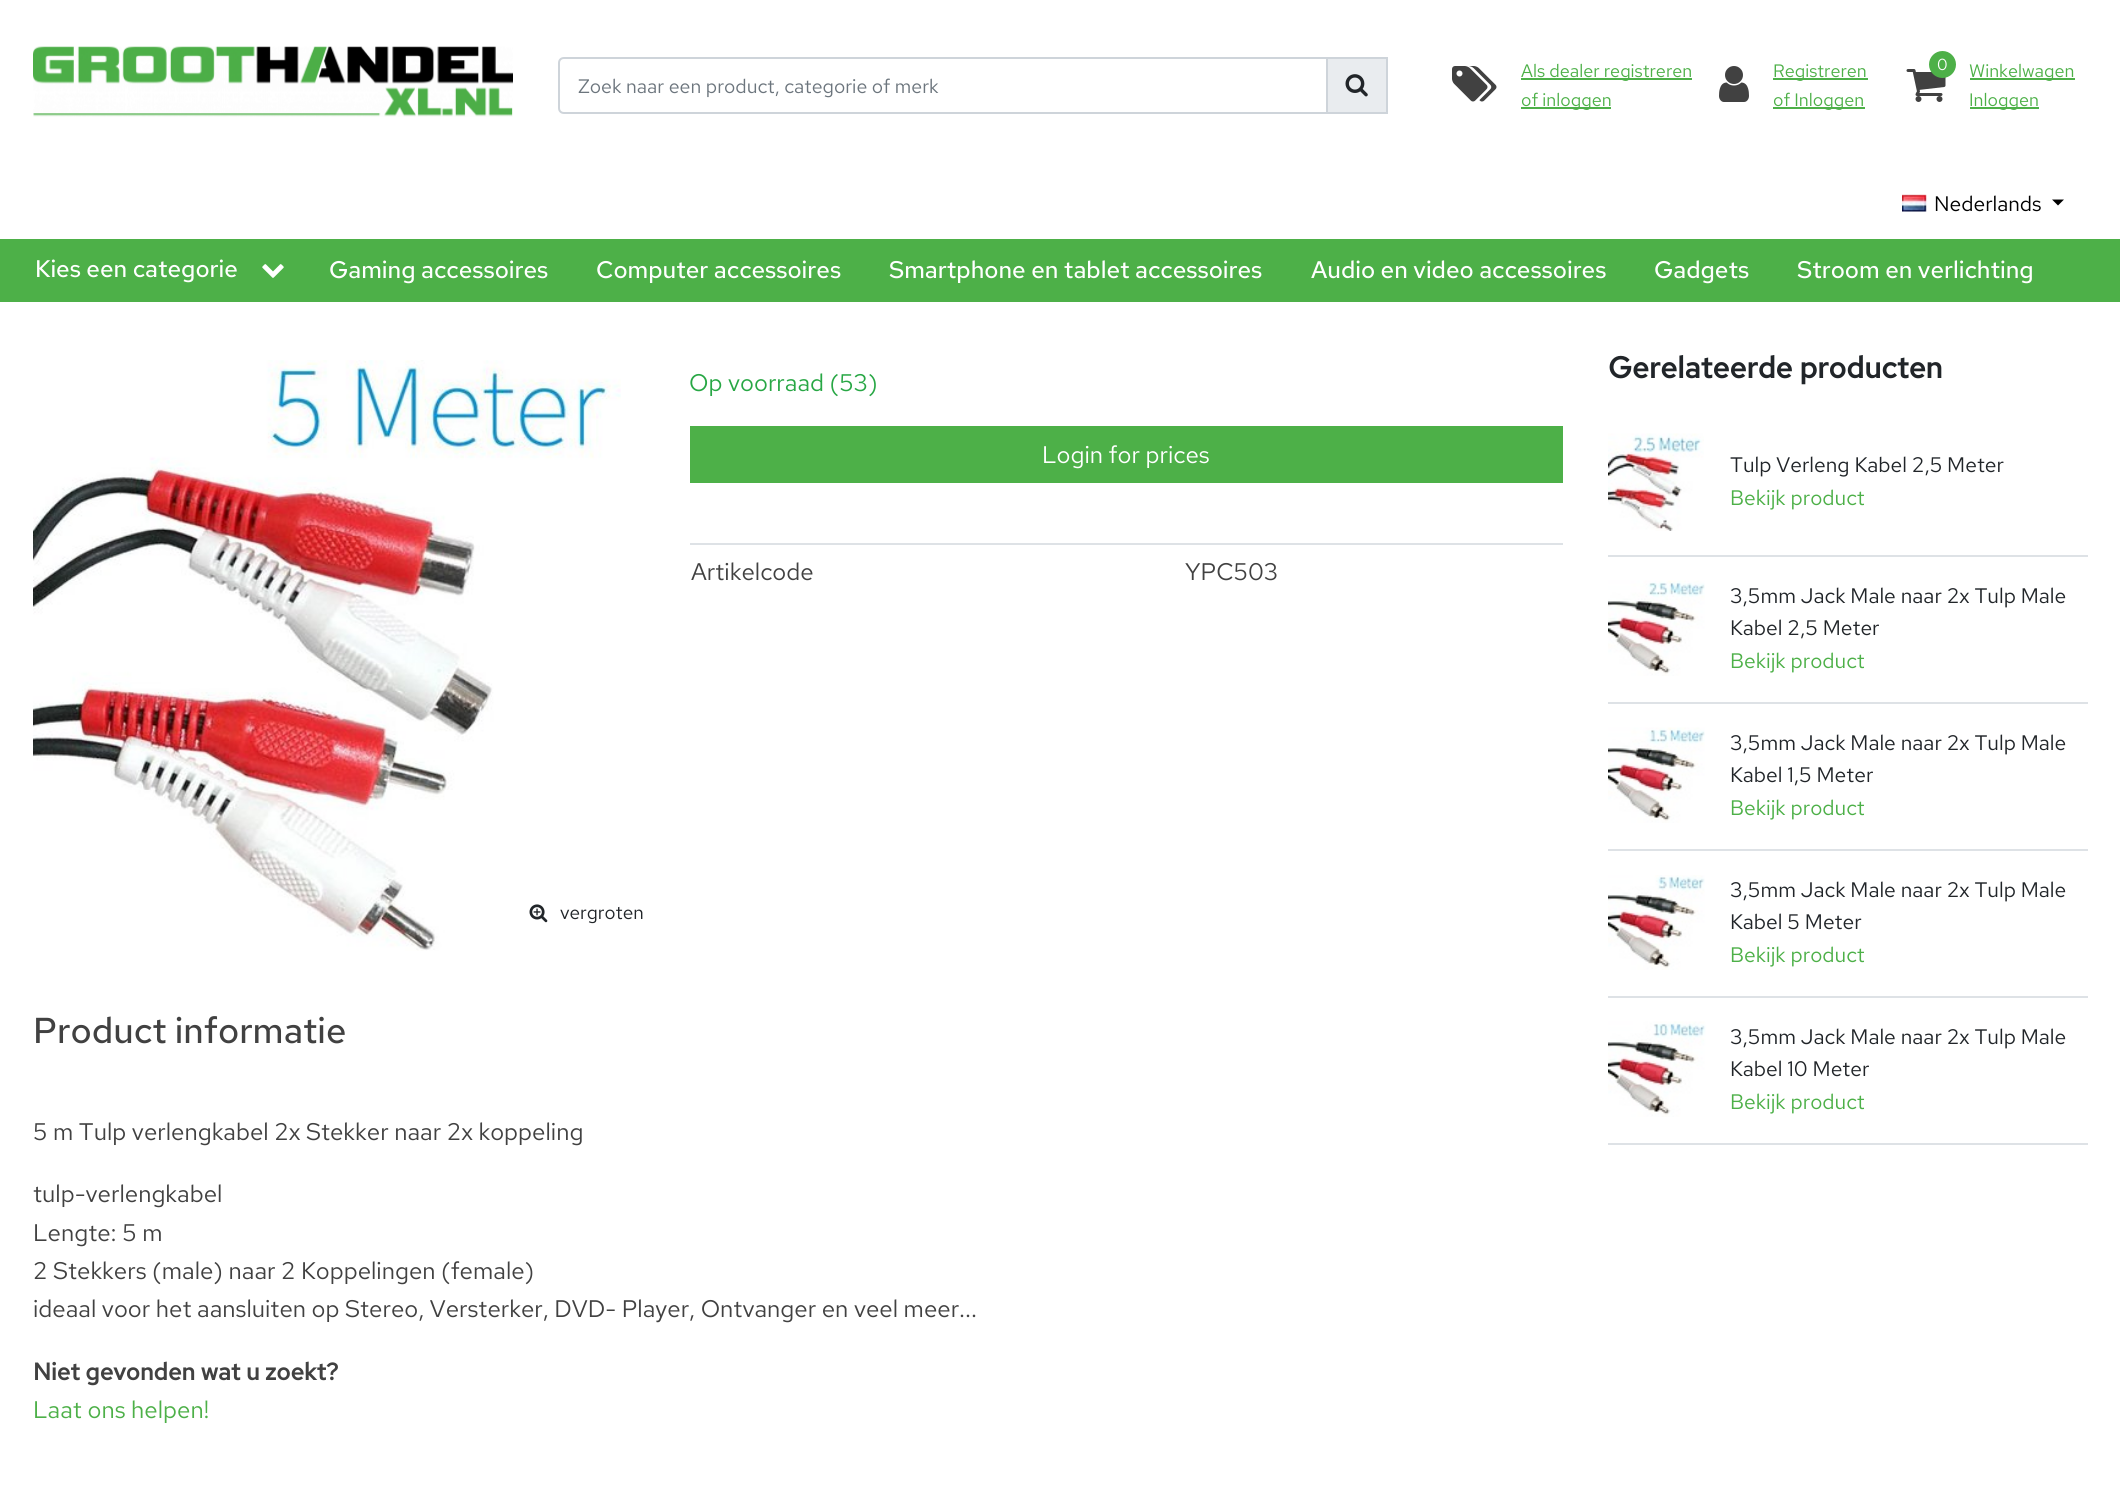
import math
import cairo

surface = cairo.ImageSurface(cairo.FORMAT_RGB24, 2120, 1494)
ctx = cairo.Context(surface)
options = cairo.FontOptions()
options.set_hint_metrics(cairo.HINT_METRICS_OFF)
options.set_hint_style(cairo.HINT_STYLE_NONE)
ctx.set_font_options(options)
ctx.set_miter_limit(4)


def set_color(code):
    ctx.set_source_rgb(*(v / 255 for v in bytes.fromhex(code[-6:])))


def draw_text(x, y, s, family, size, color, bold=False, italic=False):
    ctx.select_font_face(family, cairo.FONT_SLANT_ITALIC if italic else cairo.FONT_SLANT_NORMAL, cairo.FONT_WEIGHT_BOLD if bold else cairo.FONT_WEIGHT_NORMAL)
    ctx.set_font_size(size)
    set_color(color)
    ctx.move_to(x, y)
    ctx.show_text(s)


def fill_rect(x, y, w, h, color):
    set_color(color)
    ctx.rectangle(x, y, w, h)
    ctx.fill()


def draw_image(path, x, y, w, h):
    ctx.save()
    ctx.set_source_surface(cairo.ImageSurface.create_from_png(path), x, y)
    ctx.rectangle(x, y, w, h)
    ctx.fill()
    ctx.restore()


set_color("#ffffff")
ctx.paint()
draw_image("assets/img1.png", 33, 46, 480, 71)
set_color("#e9ecef")
ctx.rectangle(1327, 58, 60, 55)
ctx.fill_preserve()
set_color("#ced4da")
ctx.stroke()
ctx.new_path()
ctx.move_to(564, 58)
ctx.line_to(1327, 58)
ctx.line_to(1327, 113)
ctx.line_to(564, 113)
ctx.curve_to(561, 113, 559, 111, 559, 108)
ctx.line_to(559, 63)
ctx.curve_to(559, 60, 561, 58, 564, 58)
ctx.close_path()
ctx.stroke()
draw_text(578, 93, "Zoek naar een product, categorie of merk", "Red Hat Text", 19.5, "#6c757d")
draw_image("assets/img2.png", 1345, 74, 23, 23)
draw_image("assets/img3.png", 1452, 66, 45, 36)
fill_rect(1521, 78, 171, 2, "#4db048")
draw_text(1521, 77, "Als dealer registreren", "Red Hat Text", 18, "#4db048")
fill_rect(1521, 107, 90, 2, "#4db048")
draw_text(1521, 106, "of inloggen", "Red Hat Text", 18, "#4db048")
draw_image("assets/img4.png", 1719, 66, 30, 36)
fill_rect(1773, 78, 95, 2, "#4db048")
draw_text(1773, 77, "Registreren", "Red Hat Text", 18, "#4db048")
fill_rect(1773, 107, 92, 2, "#4db048")
draw_text(1773, 106, "of Inloggen", "Red Hat Text", 18, "#4db048")
draw_image("assets/img5.png", 1906, 69, 40, 33)
ctx.arc(1942.5, 64.5, 13.5, 0, 2 * math.pi)
ctx.fill()
draw_text(1937, 70, "0", "Red Hat Text", 16, "#ffffff")
fill_rect(1970, 78, 105, 2, "#4db048")
draw_text(1969, 77, "Winkelwagen", "Red Hat Text", 18, "#4db048")
fill_rect(1970, 107, 69, 2, "#4db048")
draw_text(1969, 106, "Inloggen", "Red Hat Text", 18, "#4db048")
draw_image("assets/img6.png", 1902, 194, 25, 18)
draw_text(1934, 211, "Nederlands", "Red Hat Text", 21, "#000000")
ctx.new_path()
ctx.move_to(2052, 199.5)
ctx.line_to(2064, 199.5)
ctx.line_to(2058, 205.5)
ctx.close_path()
ctx.fill()
fill_rect(0, 239, 2120, 63, "#4db048")
draw_text(35, 277, "Kies een categorie", "Red Hat Text Medium", 24, "#ffffff")
draw_image("assets/img7.png", 262, 264, 22, 14)
draw_text(329, 278, "Gaming accessoires", "Red Hat Text Medium", 24, "#ffffff")
draw_text(596, 278, "Computer accessoires", "Red Hat Text Medium", 24, "#ffffff")
draw_text(889, 278, "Smartphone en tablet accessoires", "Red Hat Text Medium", 24, "#ffffff")
draw_text(1311, 278, "Audio en video accessoires", "Red Hat Text Medium", 24, "#ffffff")
draw_text(1654, 278, "Gadgets", "Red Hat Text Medium", 24, "#ffffff")
draw_text(1797, 278, "Stroom en verlichting", "Red Hat Text Medium", 24, "#ffffff")
draw_text(689, 391, "Op voorraad (53)", "Red Hat Text", 24, "#28a745")
fill_rect(690, 426, 873, 57, "#4db048")
draw_text(1042, 463, "Login for prices", "Red Hat Text", 24, "#ffffff")
fill_rect(690, 543, 873, 2, "#dee2e6")
draw_text(691, 580, "Artikelcode", "Red Hat Text", 24, "#414141")
draw_text(1185, 580, "YPC503", "Red Hat Text", 24, "#414141")
draw_image("assets/img8.png", 33, 360, 588, 591)
draw_image("assets/img9.png", 529, 904, 19, 19)
draw_text(560, 919, "vergroten", "Red Hat Text", 19, "#212529")
draw_text(33, 1043, "Product informatie", "Red Hat Text Medium", 36, "#414141")
draw_text(33, 1140, "5 m Tulp verlengkabel 2x Stekker naar 2x koppeling", "Red Hat Text", 24, "#414141")
draw_text(33, 1202, "tulp-verlengkabel", "Red Hat Text", 24, "#414141")
draw_text(33, 1241, "Lengte: 5 m", "Red Hat Text", 24, "#414141")
draw_text(33, 1279, "2 Stekkers (male) naar 2 Koppelingen (female)", "Red Hat Text", 24, "#414141")
draw_text(33, 1317, "ideaal voor het aansluiten op Stereo, Versterker, DVD- Player, Ontvanger en veel meer...", "Red Hat Text", 24, "#414141")
draw_text(33, 1380, "Niet gevonden wat u zoekt?", "Red Hat Text", 24, "#414141", bold=True)
draw_text(33, 1418, "Laat ons helpen!", "Red Hat Text", 24, "#4db048")
draw_text(1608, 378, "Gerelateerde producten", "Red Hat Text", 30, "#212529", bold=True)
fill_rect(1608, 555, 480, 2, "#dee2e6")
draw_image("assets/img10.png", 1608, 433, 96, 98)
draw_text(1730, 472, "Tulp Verleng Kabel 2,5 Meter", "Red Hat Text", 21, "#212529")
draw_text(1730, 505, "Bekijk product", "Red Hat Text", 21, "#4db048")
fill_rect(1608, 702, 480, 2, "#dee2e6")
draw_image("assets/img11.png", 1608, 580, 97, 96)
draw_text(1730, 603, "3,5mm Jack Male naar 2x Tulp Male", "Red Hat Text", 21, "#212529")
draw_text(1730, 635, "Kabel 2,5 Meter", "Red Hat Text", 21, "#212529")
draw_text(1730, 668, "Bekijk product", "Red Hat Text", 21, "#4db048")
fill_rect(1608, 849, 480, 2, "#dee2e6")
draw_image("assets/img12.png", 1608, 727, 97, 96)
draw_text(1730, 750, "3,5mm Jack Male naar 2x Tulp Male", "Red Hat Text", 21, "#212529")
draw_text(1730, 782, "Kabel 1,5 Meter", "Red Hat Text", 21, "#212529")
draw_text(1730, 815, "Bekijk product", "Red Hat Text", 21, "#4db048")
fill_rect(1608, 996, 480, 2, "#dee2e6")
draw_image("assets/img13.png", 1608, 875, 97, 95)
draw_text(1730, 897, "3,5mm Jack Male naar 2x Tulp Male", "Red Hat Text", 21, "#212529")
draw_text(1730, 929, "Kabel 5 Meter", "Red Hat Text", 21, "#212529")
draw_text(1730, 962, "Bekijk product", "Red Hat Text", 21, "#4db048")
fill_rect(1608, 1143, 480, 2, "#dee2e6")
draw_image("assets/img14.png", 1608, 1021, 98, 96)
draw_text(1730, 1044, "3,5mm Jack Male naar 2x Tulp Male", "Red Hat Text", 21, "#212529")
draw_text(1730, 1076, "Kabel 10 Meter", "Red Hat Text", 21, "#212529")
draw_text(1730, 1109, "Bekijk product", "Red Hat Text", 21, "#4db048")
surface.write_to_png("output.png")
